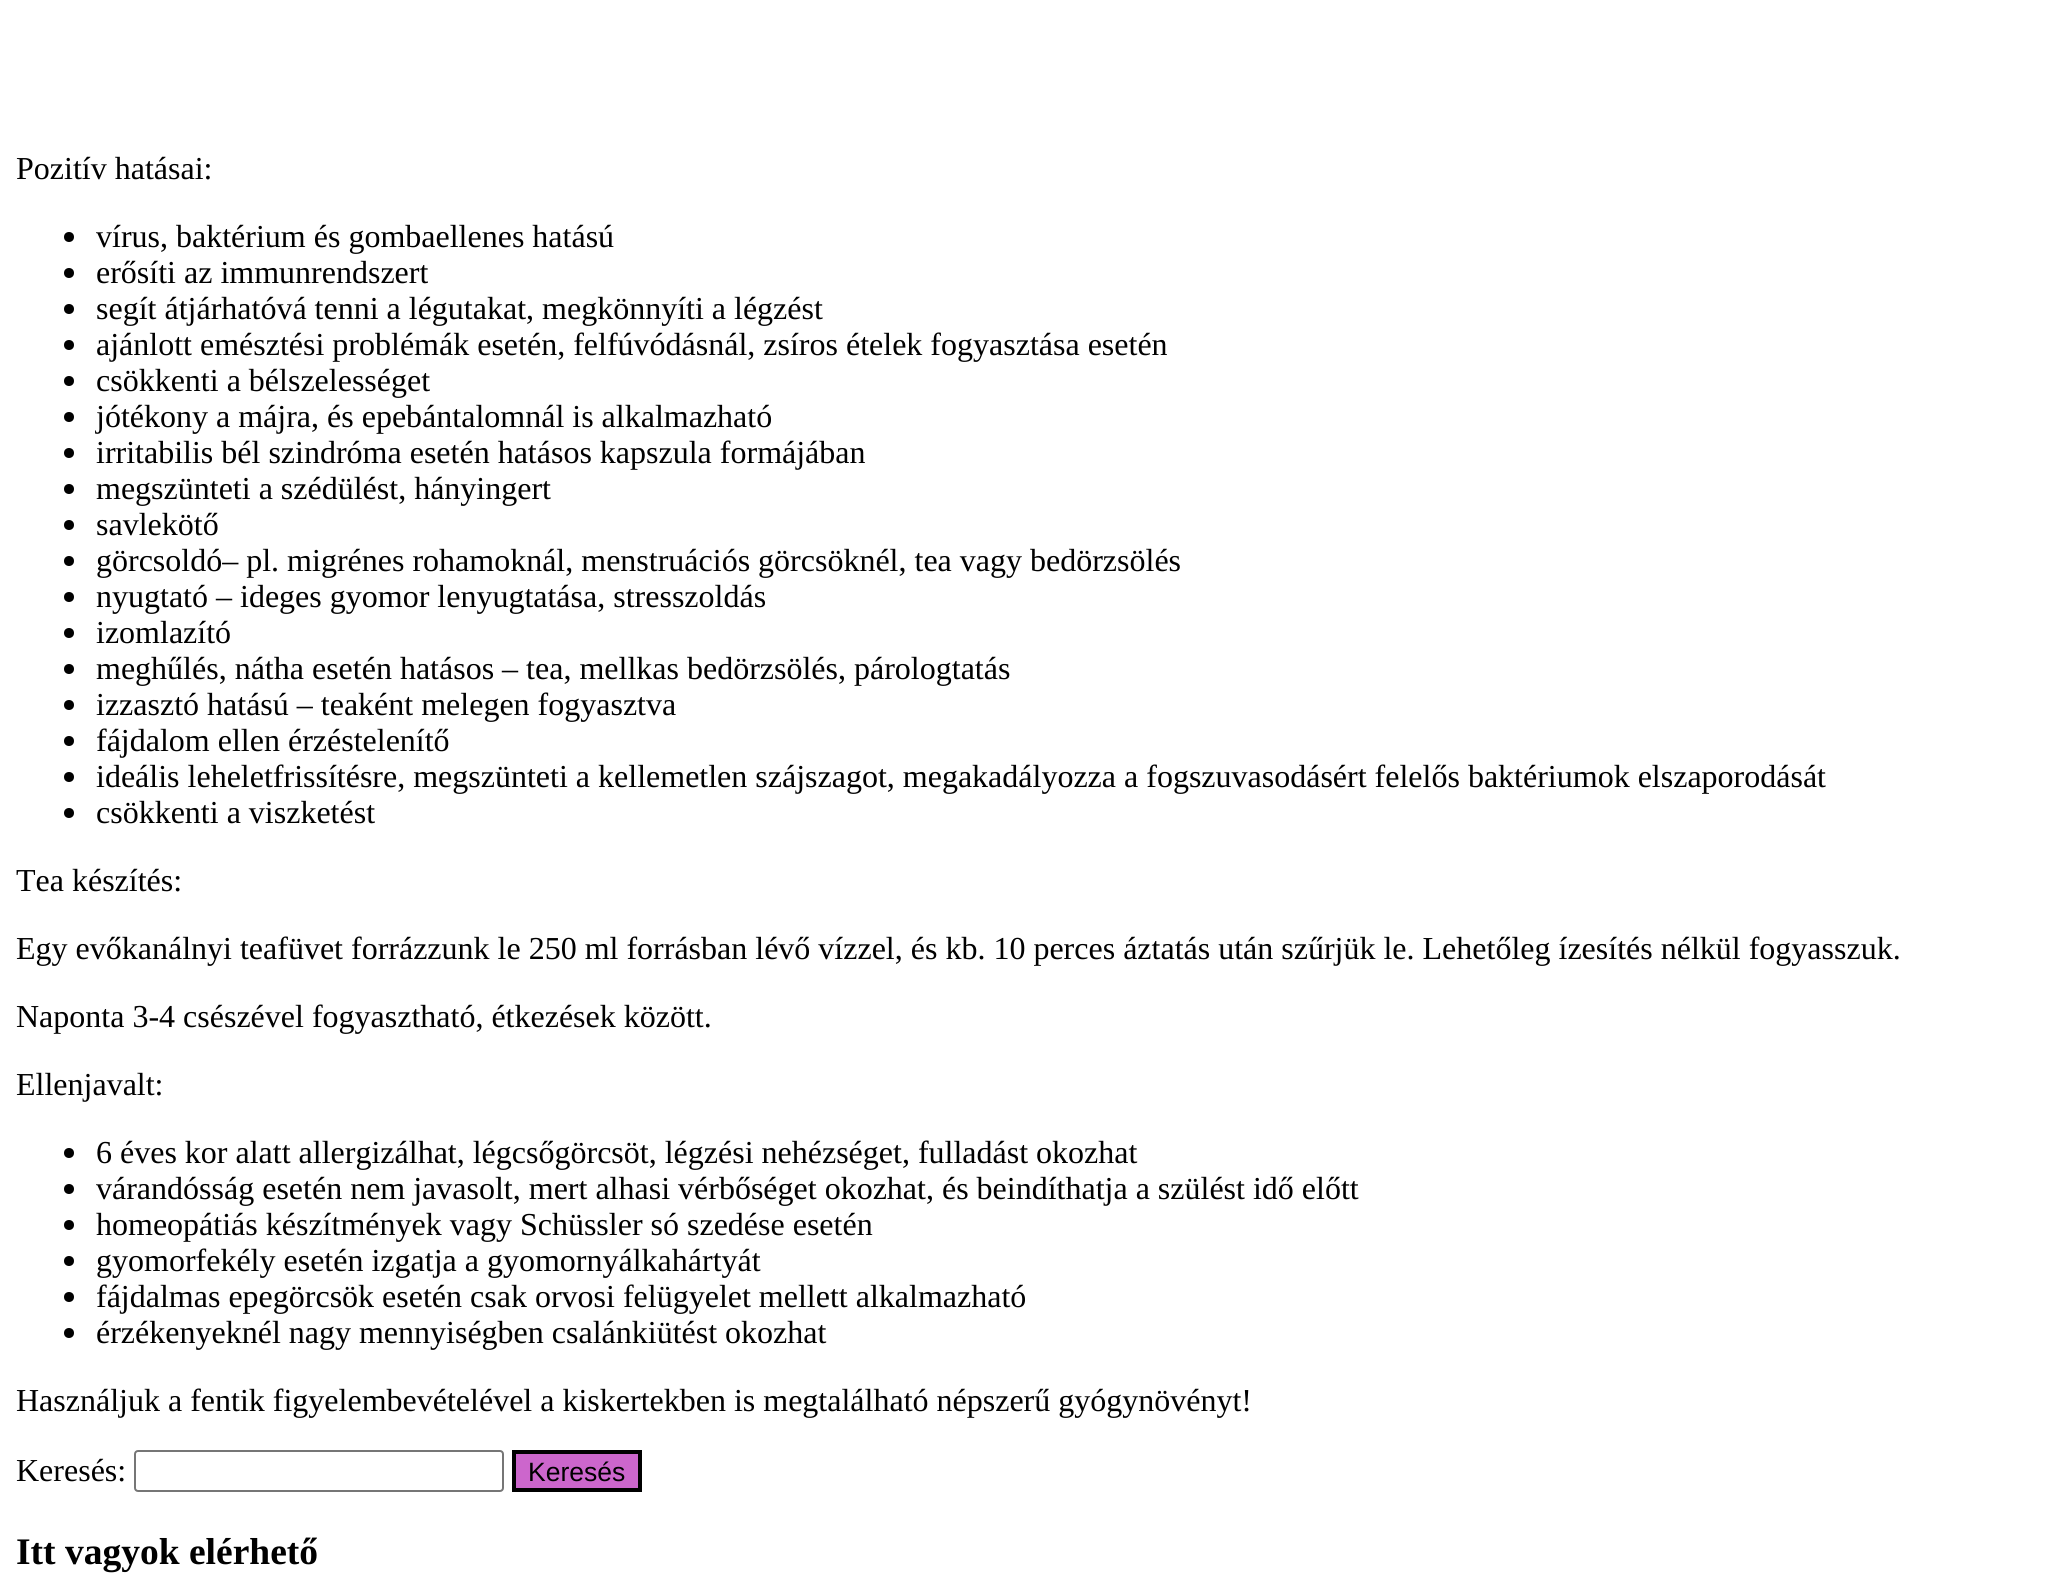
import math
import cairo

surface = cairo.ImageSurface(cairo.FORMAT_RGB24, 2055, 1574)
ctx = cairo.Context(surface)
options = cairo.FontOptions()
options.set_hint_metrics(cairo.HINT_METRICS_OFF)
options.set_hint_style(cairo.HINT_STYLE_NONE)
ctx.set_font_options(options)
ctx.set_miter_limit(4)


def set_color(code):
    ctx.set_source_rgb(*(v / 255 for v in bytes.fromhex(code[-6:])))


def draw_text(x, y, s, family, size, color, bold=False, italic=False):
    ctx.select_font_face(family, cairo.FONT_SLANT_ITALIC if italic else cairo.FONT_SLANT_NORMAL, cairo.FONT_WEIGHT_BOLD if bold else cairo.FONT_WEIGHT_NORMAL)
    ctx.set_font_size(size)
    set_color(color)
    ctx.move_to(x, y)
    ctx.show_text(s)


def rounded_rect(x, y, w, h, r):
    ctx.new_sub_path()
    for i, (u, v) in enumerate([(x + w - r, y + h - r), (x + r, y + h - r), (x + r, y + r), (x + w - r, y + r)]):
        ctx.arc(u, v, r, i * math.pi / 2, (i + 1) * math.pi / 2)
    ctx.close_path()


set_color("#ffffff")
ctx.paint()
draw_text(16, 179, "Pozitív hatásai:", "Liberation Serif", 32, "#000000")
ctx.new_path()
ctx.arc(69, 237, 5, 0, 2 * math.pi)
ctx.fill()
draw_text(96, 247, "vírus, baktérium és gombaellenes hatású", "Liberation Serif", 32, "#000000")
ctx.new_path()
ctx.arc(69, 273, 5, 0, 2 * math.pi)
ctx.fill()
draw_text(96, 283, "erősíti az immunrendszert", "Liberation Serif", 32, "#000000")
ctx.new_path()
ctx.arc(69, 309, 5, 0, 2 * math.pi)
ctx.fill()
draw_text(96, 319, "segít átjárhatóvá tenni a légutakat, megkönnyíti a légzést", "Liberation Serif", 32, "#000000")
ctx.new_path()
ctx.arc(69, 345, 5, 0, 2 * math.pi)
ctx.fill()
draw_text(96, 355, "ajánlott emésztési problémák esetén, felfúvódásnál, zsíros ételek fogyasztása esetén", "Liberation Serif", 32, "#000000")
ctx.new_path()
ctx.arc(69, 381, 5, 0, 2 * math.pi)
ctx.fill()
draw_text(96, 391, "csökkenti a bélszelességet", "Liberation Serif", 32, "#000000")
ctx.new_path()
ctx.arc(69, 417, 5, 0, 2 * math.pi)
ctx.fill()
draw_text(96, 427, "jótékony a májra, és epebántalomnál is alkalmazható", "Liberation Serif", 32, "#000000")
ctx.new_path()
ctx.arc(69, 453, 5, 0, 2 * math.pi)
ctx.fill()
draw_text(96, 463, "irritabilis bél szindróma esetén hatásos kapszula formájában", "Liberation Serif", 32, "#000000")
ctx.new_path()
ctx.arc(69, 489, 5, 0, 2 * math.pi)
ctx.fill()
draw_text(96, 499, "megszünteti a szédülést, hányingert", "Liberation Serif", 32, "#000000")
ctx.new_path()
ctx.arc(69, 525, 5, 0, 2 * math.pi)
ctx.fill()
draw_text(96, 535, "savlekötő", "Liberation Serif", 32, "#000000")
ctx.new_path()
ctx.arc(69, 561, 5, 0, 2 * math.pi)
ctx.fill()
draw_text(96, 571, "görcsoldó– pl. migrénes rohamoknál, menstruációs görcsöknél, tea vagy bedörzsölés", "Liberation Serif", 32, "#000000")
ctx.new_path()
ctx.arc(69, 597, 5, 0, 2 * math.pi)
ctx.fill()
draw_text(96, 607, "nyugtató – ideges gyomor lenyugtatása, stresszoldás", "Liberation Serif", 32, "#000000")
ctx.new_path()
ctx.arc(69, 633, 5, 0, 2 * math.pi)
ctx.fill()
draw_text(96, 643, "izomlazító", "Liberation Serif", 32, "#000000")
ctx.new_path()
ctx.arc(69, 669, 5, 0, 2 * math.pi)
ctx.fill()
draw_text(96, 679, "meghűlés, nátha esetén hatásos – tea, mellkas bedörzsölés, párologtatás", "Liberation Serif", 32, "#000000")
ctx.new_path()
ctx.arc(69, 705, 5, 0, 2 * math.pi)
ctx.fill()
draw_text(96, 715, "izzasztó hatású – teaként melegen fogyasztva", "Liberation Serif", 32, "#000000")
ctx.new_path()
ctx.arc(69, 741, 5, 0, 2 * math.pi)
ctx.fill()
draw_text(96, 751, "fájdalom ellen érzéstelenítő", "Liberation Serif", 32, "#000000")
ctx.new_path()
ctx.arc(69, 777, 5, 0, 2 * math.pi)
ctx.fill()
draw_text(96, 787, "ideális leheletfrissítésre, megszünteti a kellemetlen szájszagot, megakadályozza a fogszuvasodásért felelős baktériumok elszaporodását", "Liberation Serif", 32, "#000000")
ctx.new_path()
ctx.arc(69, 813, 5, 0, 2 * math.pi)
ctx.fill()
draw_text(96, 823, "csökkenti a viszketést", "Liberation Serif", 32, "#000000")
draw_text(16, 891, "Tea készítés:", "Liberation Serif", 32, "#000000")
draw_text(16, 959, "Egy evőkanálnyi teafüvet forrázzunk le 250 ml forrásban lévő vízzel, és kb. 10 perces áztatás után szűrjük le. Lehetőleg ízesítés nélkül fogyasszuk.", "Liberation Serif", 32, "#000000")
draw_text(16, 1027, "Naponta 3-4 csészével fogyasztható, étkezések között.", "Liberation Serif", 32, "#000000")
draw_text(16, 1095, "Ellenjavalt:", "Liberation Serif", 32, "#000000")
ctx.new_path()
ctx.arc(69, 1153, 5, 0, 2 * math.pi)
ctx.fill()
draw_text(96, 1163, "6 éves kor alatt allergizálhat, légcsőgörcsöt, légzési nehézséget, fulladást okozhat", "Liberation Serif", 32, "#000000")
ctx.new_path()
ctx.arc(69, 1189, 5, 0, 2 * math.pi)
ctx.fill()
draw_text(96, 1199, "várandósság esetén nem javasolt, mert alhasi vérbőséget okozhat, és beindíthatja a szülést idő előtt", "Liberation Serif", 32, "#000000")
ctx.new_path()
ctx.arc(69, 1225, 5, 0, 2 * math.pi)
ctx.fill()
draw_text(96, 1235, "homeopátiás készítmények vagy Schüssler só szedése esetén", "Liberation Serif", 32, "#000000")
ctx.new_path()
ctx.arc(69, 1261, 5, 0, 2 * math.pi)
ctx.fill()
draw_text(96, 1271, "gyomorfekély esetén izgatja a gyomornyálkahártyát", "Liberation Serif", 32, "#000000")
ctx.new_path()
ctx.arc(69, 1297, 5, 0, 2 * math.pi)
ctx.fill()
draw_text(96, 1307, "fájdalmas epegörcsök esetén csak orvosi felügyelet mellett alkalmazható", "Liberation Serif", 32, "#000000")
ctx.new_path()
ctx.arc(69, 1333, 5, 0, 2 * math.pi)
ctx.fill()
draw_text(96, 1343, "érzékenyeknél nagy mennyiségben csalánkiütést okozhat", "Liberation Serif", 32, "#000000")
draw_text(16, 1411, "Használjuk a fentik figyelembevételével a kiskertekben is megtalálható népszerű gyógynövényt!", "Liberation Serif", 32, "#000000")
draw_text(16, 1481, "Keresés:", "Liberation Serif", 32, "#000000")
rounded_rect(135, 1451, 368, 40, 3)
set_color("#767676")
ctx.stroke()
set_color("#cc66cc")
ctx.rectangle(514, 1452, 126, 38)
ctx.fill_preserve()
set_color("#000000")
ctx.set_line_width(4)
ctx.stroke()
draw_text(528, 1481, "Keresés", "Liberation Sans", 26.5, "#000000")
draw_text(16, 1564, "Itt vagyok elérhető", "Liberation Serif", 37.5, "#000000", bold=True)
surface.write_to_png("output.png")
